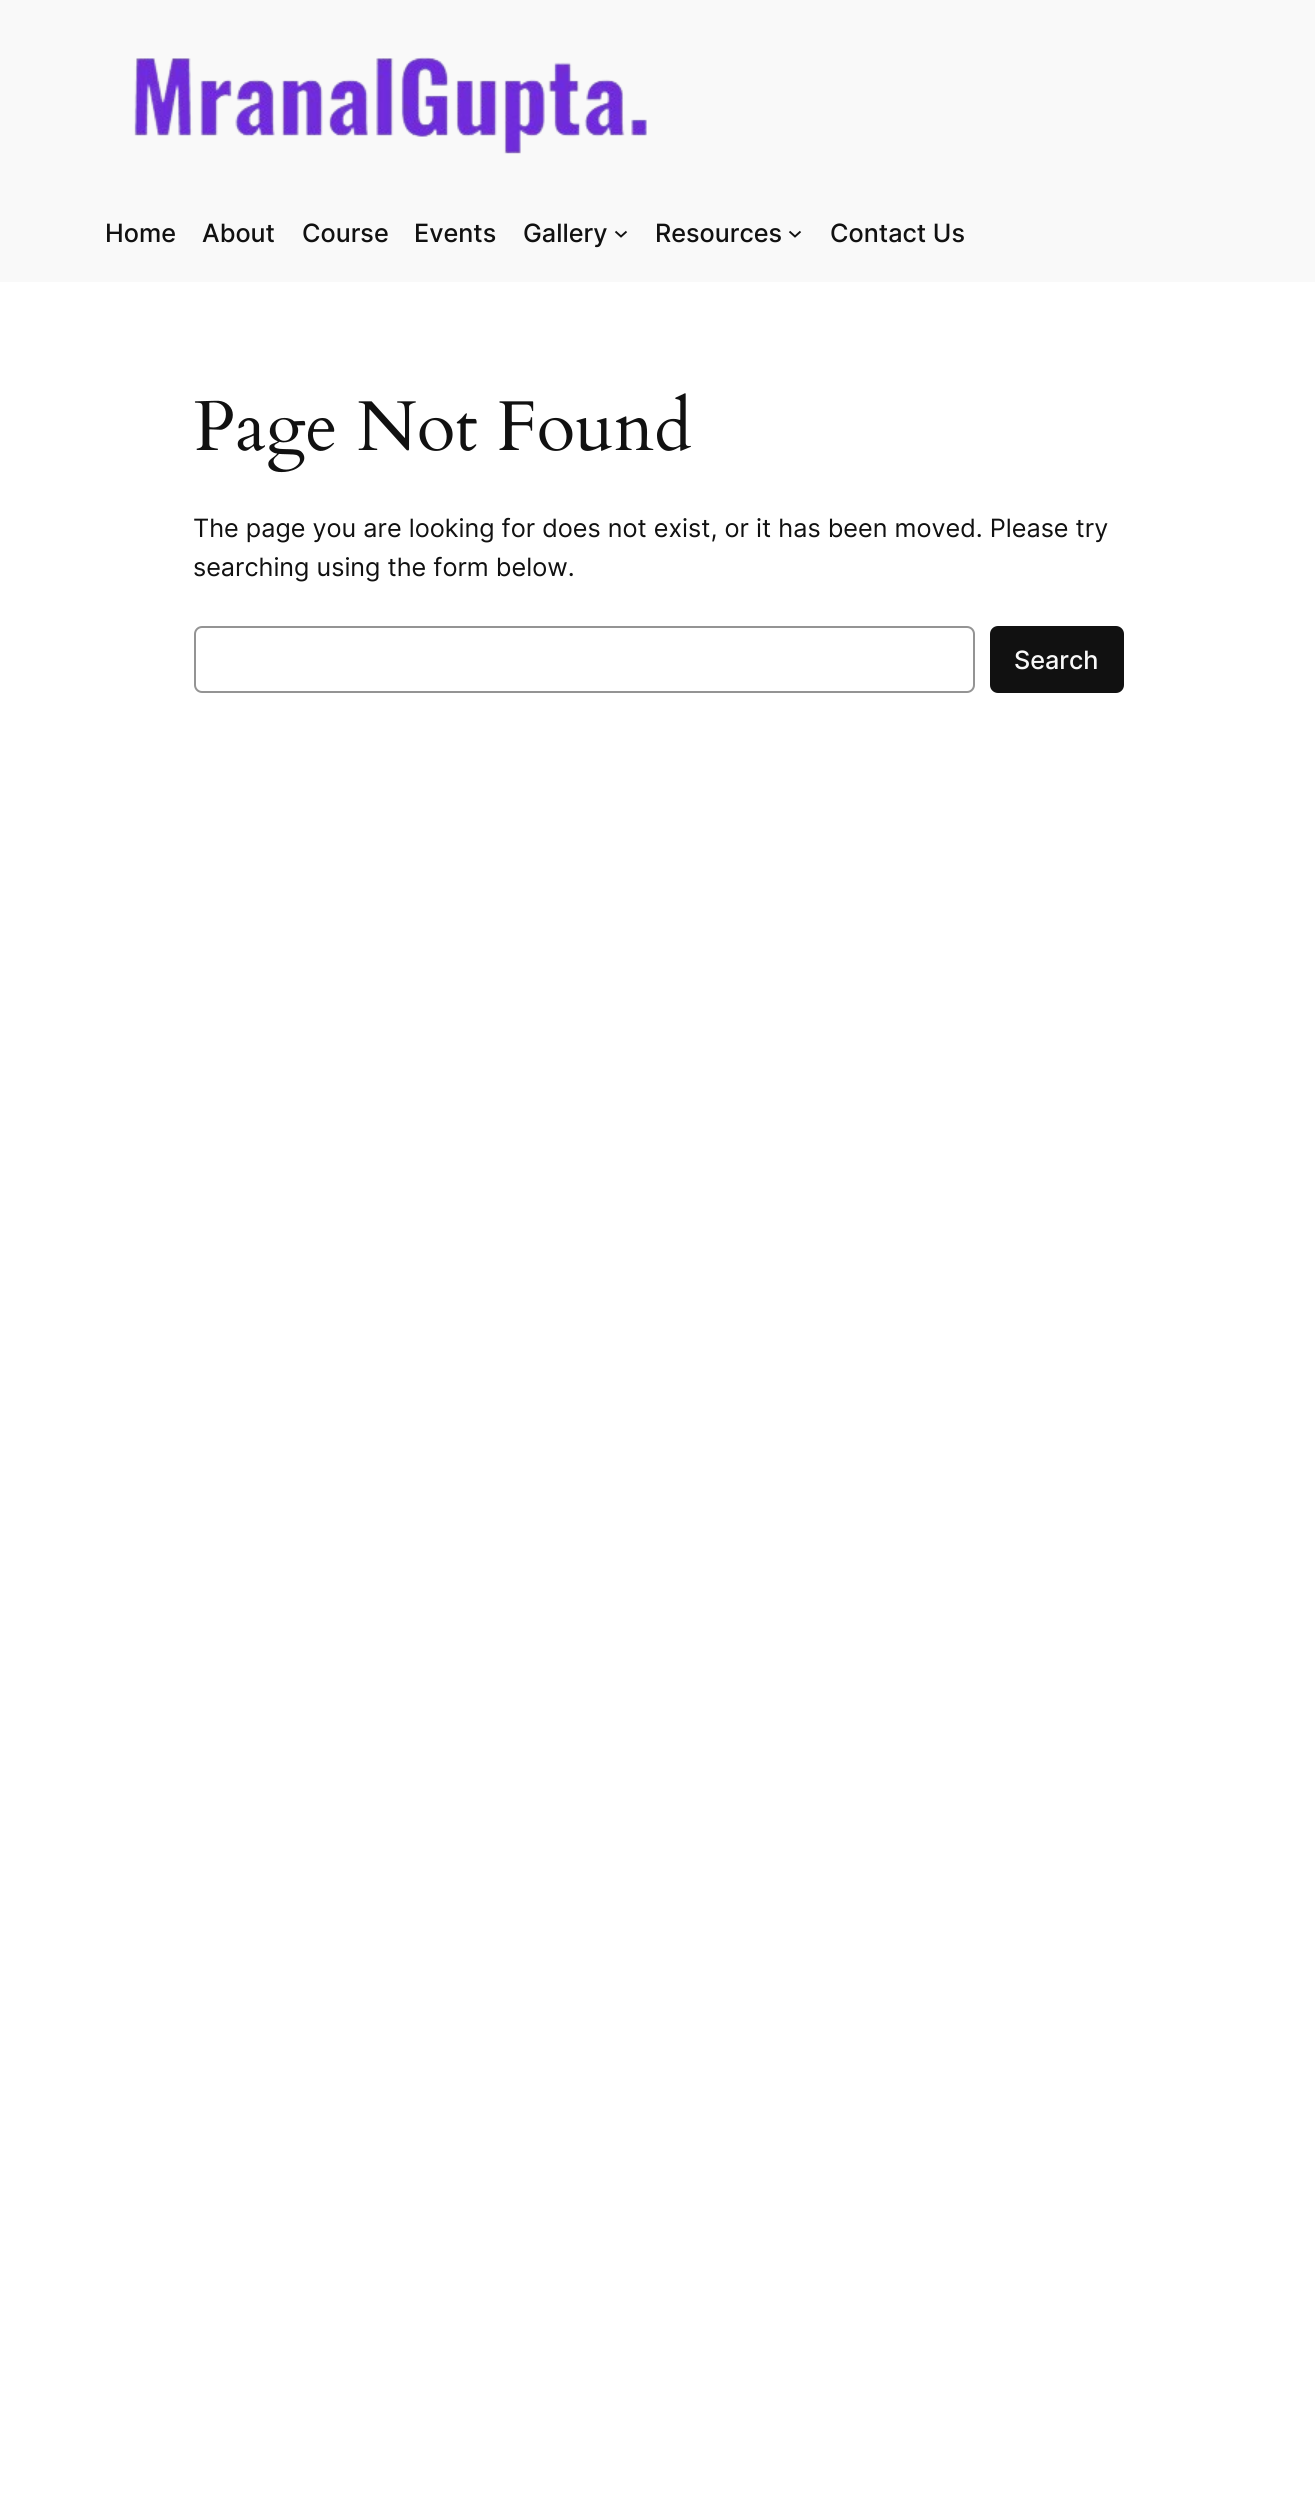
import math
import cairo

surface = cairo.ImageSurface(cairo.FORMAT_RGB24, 1315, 2501)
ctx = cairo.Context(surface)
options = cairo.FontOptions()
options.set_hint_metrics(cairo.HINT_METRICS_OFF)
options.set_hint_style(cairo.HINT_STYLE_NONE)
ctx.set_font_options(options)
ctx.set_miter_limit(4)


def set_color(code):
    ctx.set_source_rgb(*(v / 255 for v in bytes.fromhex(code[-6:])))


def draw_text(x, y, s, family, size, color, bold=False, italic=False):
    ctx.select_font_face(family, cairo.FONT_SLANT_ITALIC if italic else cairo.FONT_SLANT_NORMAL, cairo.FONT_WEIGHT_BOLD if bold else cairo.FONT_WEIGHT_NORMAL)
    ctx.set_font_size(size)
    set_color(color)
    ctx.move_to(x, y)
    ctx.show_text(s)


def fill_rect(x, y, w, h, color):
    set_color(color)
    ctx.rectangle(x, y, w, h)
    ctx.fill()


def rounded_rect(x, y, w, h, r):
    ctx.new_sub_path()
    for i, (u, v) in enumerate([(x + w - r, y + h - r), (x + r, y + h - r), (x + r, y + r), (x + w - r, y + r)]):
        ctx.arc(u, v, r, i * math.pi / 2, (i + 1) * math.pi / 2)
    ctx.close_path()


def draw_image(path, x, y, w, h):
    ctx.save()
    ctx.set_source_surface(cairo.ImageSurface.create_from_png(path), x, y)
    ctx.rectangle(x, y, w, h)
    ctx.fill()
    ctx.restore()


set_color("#ffffff")
ctx.paint()
fill_rect(0, 0, 1315, 282, "#f9f9f9")
draw_image("assets/img1.png", 134, 57, 513, 97)
draw_text(105, 242, "Home", "Inter Medium", 25.2, "#111111")
draw_text(202, 242, "About", "Inter Medium", 25.2, "#111111")
draw_text(302, 242, "Course", "Inter Medium", 25.2, "#111111")
draw_text(414, 242, "Events", "Inter Medium", 25.2, "#111111")
draw_text(523, 242, "Gallery", "Inter Medium", 25.2, "#111111")
ctx.new_path()
ctx.move_to(615.5, 231.5)
ctx.line_to(621, 236.5)
ctx.line_to(626.5, 231.5)
ctx.set_line_width(1.9)
ctx.stroke()
draw_text(655, 242, "Resources", "Inter Medium", 25.2, "#111111")
ctx.new_path()
ctx.move_to(789.5, 231.5)
ctx.line_to(795, 236.5)
ctx.line_to(800.5, 231.5)
ctx.stroke()
draw_text(830, 242, "Contact Us", "Inter Medium", 25.2, "#111111")
draw_image("assets/img2.png", 194, 393, 497, 80)
draw_text(193, 537, "The page you are looking for does not exist, or it has been moved. Please try", "Inter", 25.2, "#111111")
draw_text(193, 576, "searching using the form below.", "Inter", 25.2, "#111111")
rounded_rect(195, 627, 779, 65, 7)
set_color("#949494")
ctx.set_line_width(2)
ctx.stroke()
set_color("#111111")
rounded_rect(990, 626, 134, 67, 8)
ctx.fill()
draw_text(1014, 669, "Search", "Inter Medium", 25.2, "#f9f9f9")
surface.write_to_png("output.png")
